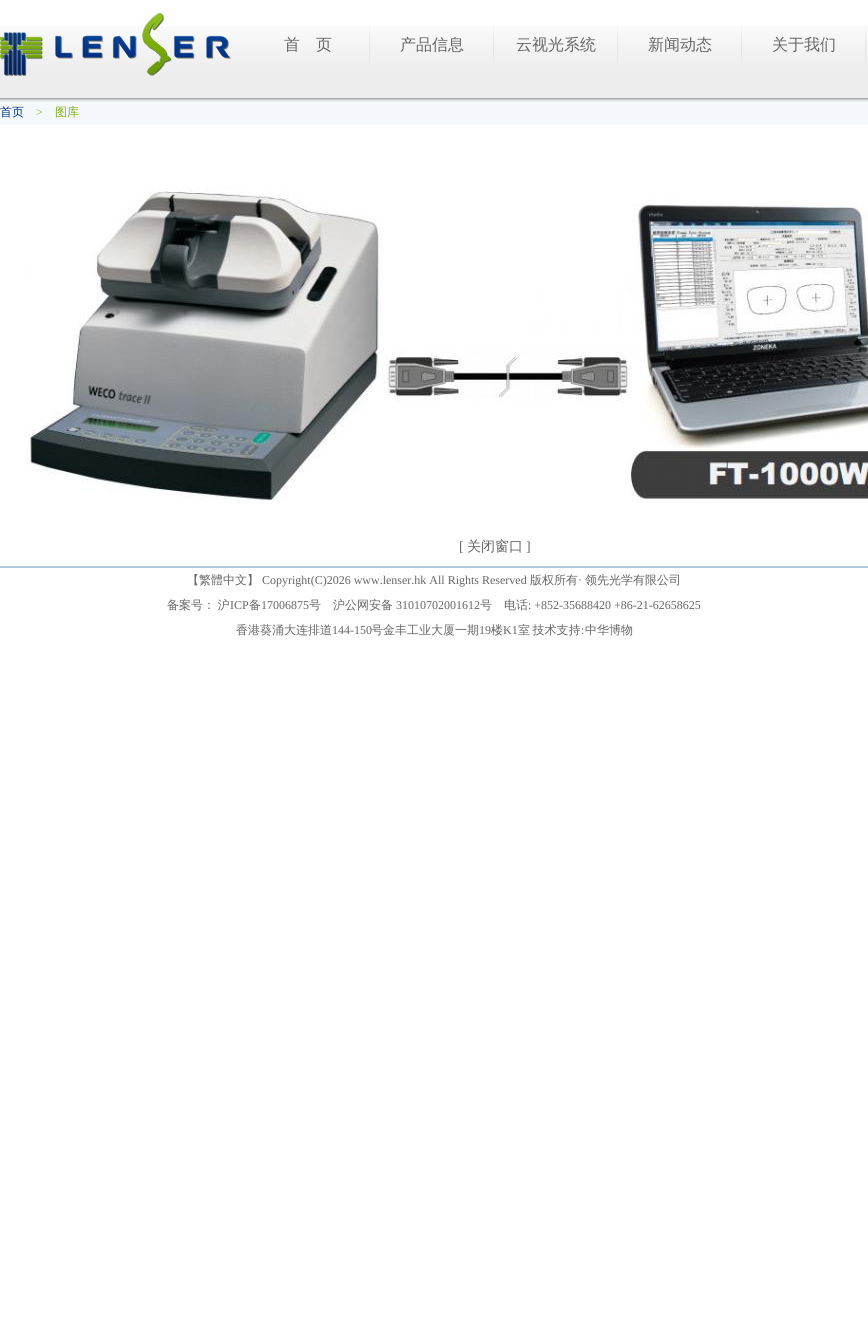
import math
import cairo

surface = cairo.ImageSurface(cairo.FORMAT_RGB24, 868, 1320)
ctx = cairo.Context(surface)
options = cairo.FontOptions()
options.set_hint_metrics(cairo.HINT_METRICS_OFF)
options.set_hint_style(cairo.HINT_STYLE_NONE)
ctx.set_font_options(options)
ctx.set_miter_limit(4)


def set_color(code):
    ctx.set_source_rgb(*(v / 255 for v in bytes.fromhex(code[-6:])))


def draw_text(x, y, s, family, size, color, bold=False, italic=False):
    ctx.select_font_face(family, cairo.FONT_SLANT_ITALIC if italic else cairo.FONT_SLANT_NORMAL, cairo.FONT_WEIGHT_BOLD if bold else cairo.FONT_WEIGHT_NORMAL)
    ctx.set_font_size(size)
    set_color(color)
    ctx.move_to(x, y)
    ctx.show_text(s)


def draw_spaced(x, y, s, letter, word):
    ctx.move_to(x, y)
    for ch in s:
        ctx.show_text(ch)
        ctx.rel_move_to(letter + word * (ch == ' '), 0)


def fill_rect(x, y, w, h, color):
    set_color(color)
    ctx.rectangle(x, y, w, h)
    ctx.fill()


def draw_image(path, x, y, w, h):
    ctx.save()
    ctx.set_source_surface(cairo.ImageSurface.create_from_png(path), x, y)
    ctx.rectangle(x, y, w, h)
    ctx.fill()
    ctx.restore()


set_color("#ffffff")
ctx.paint()
draw_image("assets/img1.png", 0, 26, 868, 76)
draw_image("assets/img2.png", 0, 13, 231, 63)
draw_image("assets/img3.png", 369, 25, 1, 38)
draw_text(284, 50, "首　页", "WenQuanYi Zen Hei Medium", 16, "#666666")
draw_image("assets/img3.png", 493, 25, 1, 38)
draw_text(400, 50, "产品信息", "WenQuanYi Zen Hei Medium", 16, "#666666")
draw_image("assets/img3.png", 617, 25, 1, 38)
draw_text(516, 50, "云视光系统", "WenQuanYi Zen Hei Medium", 16, "#666666")
draw_image("assets/img3.png", 741, 25, 1, 38)
draw_text(648, 50, "新闻动态", "WenQuanYi Zen Hei Medium", 16, "#666666")
draw_image("assets/img3.png", 865, 25, 1, 38)
draw_text(772, 50, "关于我们", "WenQuanYi Zen Hei Medium", 16, "#666666")
fill_rect(0, 102, 868, 23, "#f4f7fb")
draw_text(0, 116, "首页", "WenQuanYi Zen Hei Medium", 12, "#003a8e")
draw_text(36, 116, ">", "Liberation Serif", 12, "#80b511")
draw_text(55, 116, "图库", "WenQuanYi Zen Hei Medium", 12, "#80b511")
draw_image("assets/img4.png", 24, 187, 844, 317)
draw_text(459, 551, "[", "Liberation Serif", 14, "#666666")
draw_text(467, 551, "关闭窗口", "WenQuanYi Zen Hei Medium", 14, "#666666")
draw_text(526, 551, "]", "Liberation Serif", 14, "#666666")
fill_rect(0, 566, 868, 2, "#b0c6da")
draw_text(187, 584, "【繁體中文】", "WenQuanYi Zen Hei Medium", 12, "#666666")
draw_text(262, 584, "Copyright(C)2026 www.lenser.hk All Rights Reserved", "Liberation Serif", 12, "#666666")
draw_text(530, 584, "版权所有", "WenQuanYi Zen Hei Medium", 12, "#666666")
draw_text(578, 584, "·", "Liberation Serif", 12, "#666666")
draw_text(585, 584, "领先光学有限公司", "WenQuanYi Zen Hei Medium", 12, "#666666")
draw_spaced(167, 609, "备案号： 沪", 0, -1)
draw_text(230, 609, "ICP", "Liberation Serif", 12, "#666666")
draw_text(249, 609, "备", "WenQuanYi Zen Hei Medium", 12, "#666666")
draw_text(261, 609, "17006875", "Liberation Serif", 12, "#666666")
draw_text(309, 609, "号", "WenQuanYi Zen Hei Medium", 12, "#666666")
draw_text(333, 609, "沪公网安备", "WenQuanYi Zen Hei Medium", 12, "#666666")
draw_text(396, 609, "31010702001612", "Liberation Serif", 12, "#666666")
draw_text(480, 609, "号", "WenQuanYi Zen Hei Medium", 12, "#666666")
draw_text(504, 609, "电话", "WenQuanYi Zen Hei Medium", 12, "#666666")
draw_text(528, 609, ": +852-35688420 +86-21-62658625", "Liberation Serif", 12, "#666666")
draw_text(236, 634, "香港葵涌大连排道", "WenQuanYi Zen Hei Medium", 12, "#666666")
draw_text(332, 634, "144-150", "Liberation Serif", 12, "#666666")
draw_text(371, 634, "号金丰工业大厦一期", "WenQuanYi Zen Hei Medium", 12, "#666666")
draw_text(479, 634, "19", "Liberation Serif", 12, "#666666")
draw_text(491, 634, "楼", "WenQuanYi Zen Hei Medium", 12, "#666666")
draw_text(503, 634, "K1", "Liberation Serif", 12, "#666666")
ctx.select_font_face("WenQuanYi Zen Hei Medium")
draw_spaced(518, 634, "室 技术支持", 0, -1)
draw_text(581, 634, ":", "Liberation Serif", 12, "#666666")
draw_text(585, 634, "中华博物", "WenQuanYi Zen Hei Medium", 12, "#666666")
surface.write_to_png("output.png")
